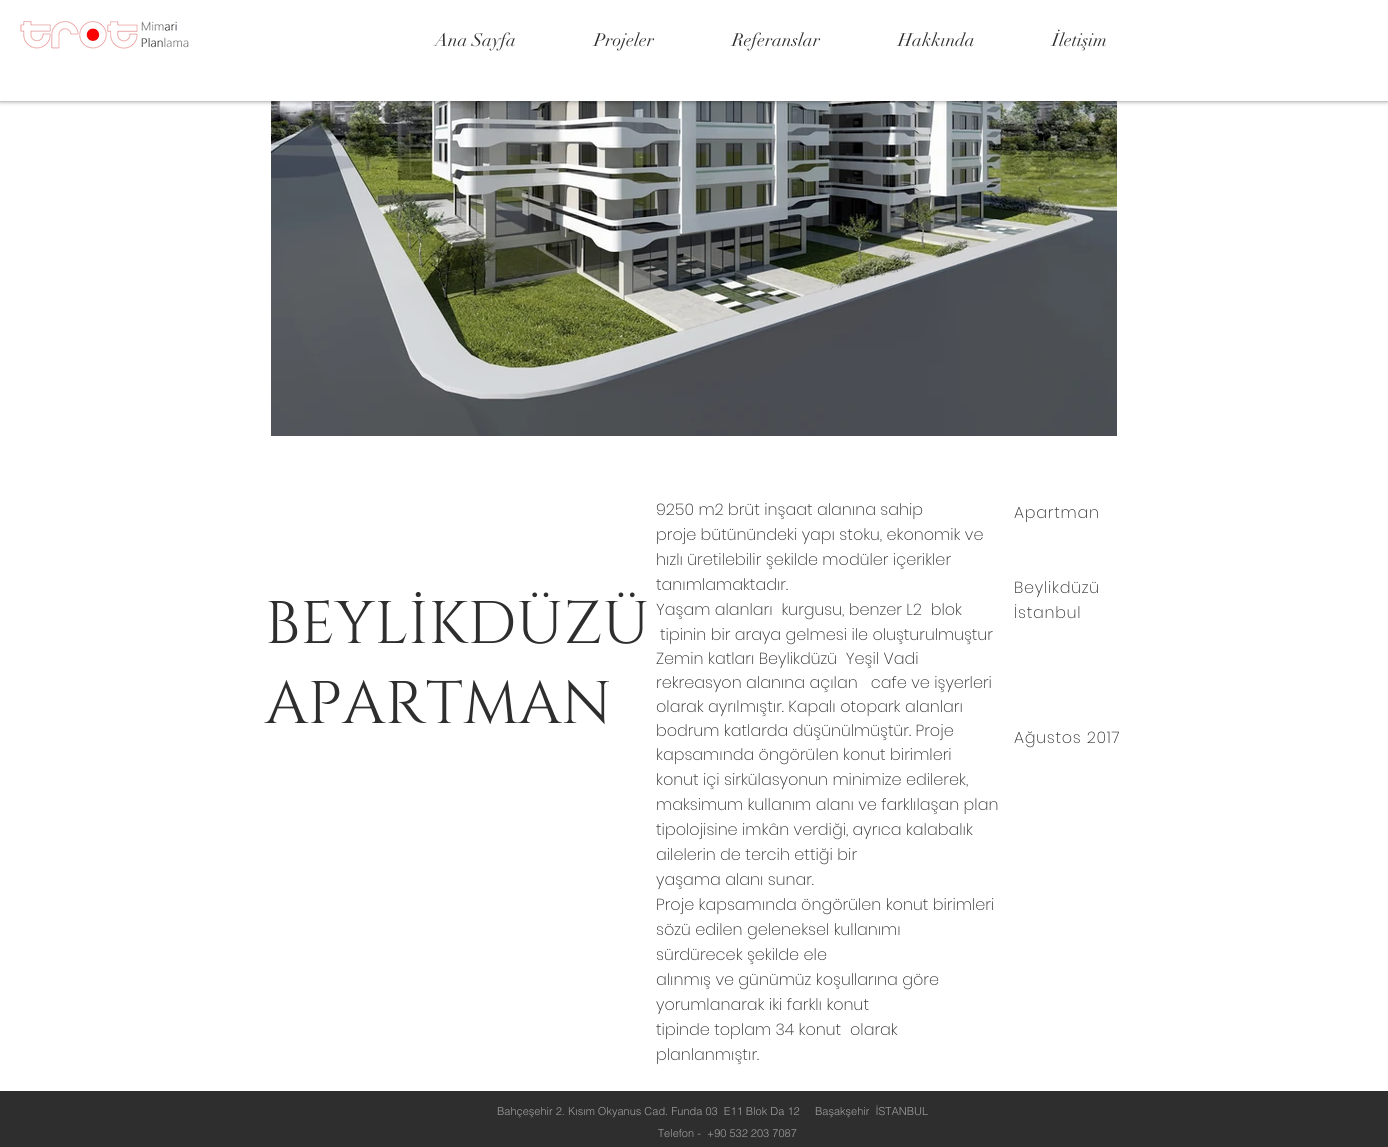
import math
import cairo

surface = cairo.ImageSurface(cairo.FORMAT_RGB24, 1388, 1147)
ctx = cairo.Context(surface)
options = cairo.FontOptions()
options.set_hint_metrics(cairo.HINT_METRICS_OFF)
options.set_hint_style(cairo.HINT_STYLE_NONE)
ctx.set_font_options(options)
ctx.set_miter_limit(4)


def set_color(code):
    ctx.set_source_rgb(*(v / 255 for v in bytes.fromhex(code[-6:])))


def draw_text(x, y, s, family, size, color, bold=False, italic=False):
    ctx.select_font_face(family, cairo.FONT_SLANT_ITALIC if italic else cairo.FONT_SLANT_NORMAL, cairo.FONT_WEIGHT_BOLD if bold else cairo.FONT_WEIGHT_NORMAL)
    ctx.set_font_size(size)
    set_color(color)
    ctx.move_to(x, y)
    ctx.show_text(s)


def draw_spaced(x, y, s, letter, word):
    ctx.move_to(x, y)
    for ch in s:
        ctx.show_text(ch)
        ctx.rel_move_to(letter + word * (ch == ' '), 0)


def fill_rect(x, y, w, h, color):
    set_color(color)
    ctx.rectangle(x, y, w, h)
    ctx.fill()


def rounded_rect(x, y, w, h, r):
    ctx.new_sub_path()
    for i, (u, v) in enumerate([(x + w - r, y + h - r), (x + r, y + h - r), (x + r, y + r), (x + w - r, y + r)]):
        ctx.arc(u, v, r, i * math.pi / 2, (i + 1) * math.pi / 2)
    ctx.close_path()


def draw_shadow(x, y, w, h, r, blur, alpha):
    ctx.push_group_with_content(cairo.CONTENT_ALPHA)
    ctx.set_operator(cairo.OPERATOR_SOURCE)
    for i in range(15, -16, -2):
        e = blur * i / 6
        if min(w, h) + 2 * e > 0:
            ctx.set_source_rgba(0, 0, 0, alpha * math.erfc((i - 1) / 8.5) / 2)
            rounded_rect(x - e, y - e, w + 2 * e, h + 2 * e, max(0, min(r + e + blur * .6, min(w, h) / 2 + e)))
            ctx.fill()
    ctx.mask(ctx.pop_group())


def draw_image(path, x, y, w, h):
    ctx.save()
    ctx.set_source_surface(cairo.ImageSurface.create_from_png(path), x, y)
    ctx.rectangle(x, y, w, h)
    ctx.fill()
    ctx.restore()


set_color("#ffffff")
ctx.paint()
draw_image("assets/img2.png", 271, 101, 846, 335)
set_color("#000000")
draw_shadow(0, 0, 1388, 101, 0, 2.5, 0.5)
fill_rect(0, 0, 1388, 101, "#ffffff")
draw_image("assets/img1.png", 20, 21, 169, 28)
draw_text(435, 46, "Ana Sayfa", "didot", 18, "#2f2e2e")
draw_text(594, 46, "Projeler", "didot", 18, "#2f2e2e")
draw_text(732, 46, "Referanslar", "didot", 18, "#2f2e2e")
draw_text(898, 46, "Hakkında", "didot", 18, "#2f2e2e")
draw_text(1052, 46, "İletişim", "didot", 18, "#2f2e2e")
draw_text(265, 643, "BEYLİKDÜZÜ", "Cinzel", 60, "#2f2e2e")
draw_text(265, 723, "APARTMAN", "Cinzel", 60, "#2f2e2e")
draw_text(656, 515, "9250 m2 brüt inşaat alanına sahip", "Poppins ExtraLight", 16, "#2f2e2e")
draw_text(656, 540, "proje bütünündeki yapı stoku, ekonomik ve", "Poppins ExtraLight", 16, "#2f2e2e")
draw_text(656, 565, "hızlı üretilebilir şekilde modüler içerikler", "Poppins ExtraLight", 16, "#2f2e2e")
draw_text(656, 590, "tanımlamaktadır.", "Poppins ExtraLight", 16, "#2f2e2e")
draw_text(656, 615, "Yaşam alanları  kurgusu, benzer L2  blok", "Poppins ExtraLight", 16, "#2f2e2e")
draw_text(660, 640, "tipinin bir araya gelmesi ile oluşturulmuştur", "Poppins ExtraLight", 16, "#2f2e2e")
draw_text(656, 664, "Zemin katları Beylikdüzü  Yeşil Vadi", "Poppins ExtraLight", 16, "#2f2e2e")
draw_text(656, 688, "rekreasyon alanına açılan   cafe ve işyerleri", "Poppins ExtraLight", 16, "#2f2e2e")
draw_text(656, 712, "olarak ayrılmıştır. Kapalı otopark alanları", "Poppins ExtraLight", 16, "#2f2e2e")
draw_text(656, 736, "bodrum katlarda düşünülmüştür. Proje", "Poppins ExtraLight", 16, "#2f2e2e")
draw_text(656, 760, "kapsamında öngörülen konut birimleri", "Poppins ExtraLight", 16, "#2f2e2e")
draw_text(656, 785, "konut içi sirkülasyonun minimize edilerek,", "Poppins ExtraLight", 16, "#2f2e2e")
draw_text(656, 810, "maksimum kullanım alanı ve farklılaşan plan", "Poppins ExtraLight", 16, "#2f2e2e")
draw_text(656, 835, "tipolojisine imkân verdiği, ayrıca kalabalık", "Poppins ExtraLight", 16, "#2f2e2e")
draw_text(656, 860, "ailelerin de tercih ettiği bir", "Poppins ExtraLight", 16, "#2f2e2e")
draw_text(656, 885, "yaşama alanı sunar.", "Poppins ExtraLight", 16, "#2f2e2e")
draw_text(656, 910, "Proje kapsamında öngörülen konut birimleri", "Poppins ExtraLight", 16, "#2f2e2e")
draw_text(656, 935, "sözü edilen geleneksel kullanımı", "Poppins ExtraLight", 16, "#2f2e2e")
draw_text(656, 960, "sürdürecek şekilde ele", "Poppins ExtraLight", 16, "#2f2e2e")
draw_text(656, 985, "alınmış ve günümüz koşullarına göre", "Poppins ExtraLight", 16, "#2f2e2e")
draw_text(656, 1010, "yorumlanarak iki farklı konut", "Poppins ExtraLight", 16, "#2f2e2e")
draw_text(656, 1035, "tipinde toplam 34 konut  olarak", "Poppins ExtraLight", 16, "#2f2e2e")
draw_text(656, 1060, "planlanmıştır.", "Poppins ExtraLight", 16, "#2f2e2e")
draw_spaced(1014, 518, "Apartman", 0.75, 0)
draw_spaced(1014, 593, "Beylikdüzü", 0.75, 0)
draw_spaced(1014, 618, "İstanbul", 0.75, 0)
draw_spaced(1014, 743, "Ağustos 2017", 0.75, 0)
fill_rect(0, 1091, 1388, 56, "#2f2e2e")
draw_text(497, 1115, "Bahçeşehir 2. Kısım Okyanus Cad. Funda 03  E11 Blok Da 12", "helvetica Light", 11, "#a0a09f")
draw_text(815, 1115, "Başakşehir  İSTANBUL", "helvetica Light", 11, "#a0a09f")
draw_text(658, 1137, "Telefon -  +90 532 203 7087", "helvetica Light", 11, "#a0a09f")
surface.write_to_png("output.png")
